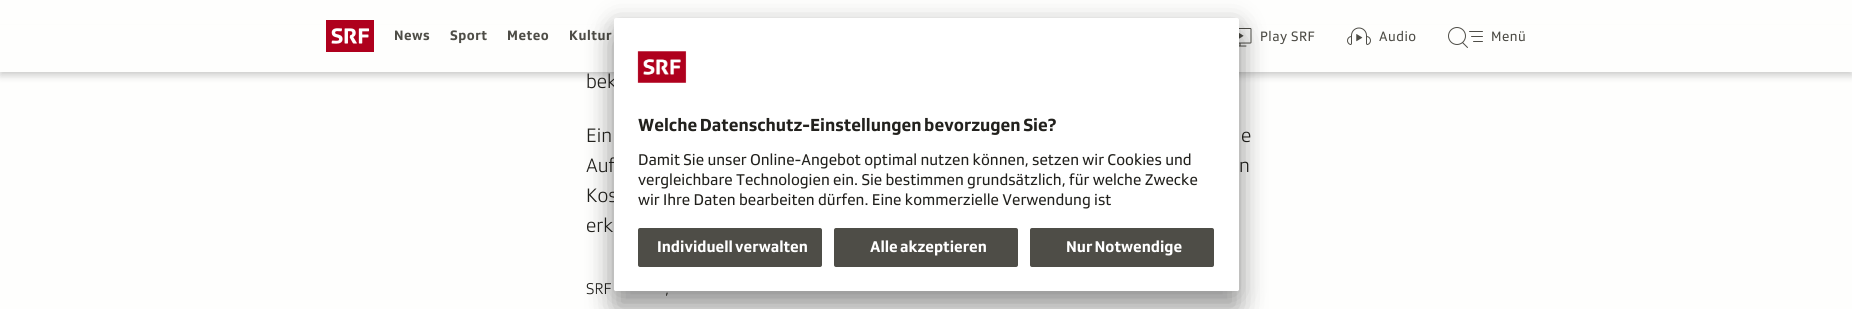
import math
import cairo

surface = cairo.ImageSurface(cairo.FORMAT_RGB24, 1852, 309)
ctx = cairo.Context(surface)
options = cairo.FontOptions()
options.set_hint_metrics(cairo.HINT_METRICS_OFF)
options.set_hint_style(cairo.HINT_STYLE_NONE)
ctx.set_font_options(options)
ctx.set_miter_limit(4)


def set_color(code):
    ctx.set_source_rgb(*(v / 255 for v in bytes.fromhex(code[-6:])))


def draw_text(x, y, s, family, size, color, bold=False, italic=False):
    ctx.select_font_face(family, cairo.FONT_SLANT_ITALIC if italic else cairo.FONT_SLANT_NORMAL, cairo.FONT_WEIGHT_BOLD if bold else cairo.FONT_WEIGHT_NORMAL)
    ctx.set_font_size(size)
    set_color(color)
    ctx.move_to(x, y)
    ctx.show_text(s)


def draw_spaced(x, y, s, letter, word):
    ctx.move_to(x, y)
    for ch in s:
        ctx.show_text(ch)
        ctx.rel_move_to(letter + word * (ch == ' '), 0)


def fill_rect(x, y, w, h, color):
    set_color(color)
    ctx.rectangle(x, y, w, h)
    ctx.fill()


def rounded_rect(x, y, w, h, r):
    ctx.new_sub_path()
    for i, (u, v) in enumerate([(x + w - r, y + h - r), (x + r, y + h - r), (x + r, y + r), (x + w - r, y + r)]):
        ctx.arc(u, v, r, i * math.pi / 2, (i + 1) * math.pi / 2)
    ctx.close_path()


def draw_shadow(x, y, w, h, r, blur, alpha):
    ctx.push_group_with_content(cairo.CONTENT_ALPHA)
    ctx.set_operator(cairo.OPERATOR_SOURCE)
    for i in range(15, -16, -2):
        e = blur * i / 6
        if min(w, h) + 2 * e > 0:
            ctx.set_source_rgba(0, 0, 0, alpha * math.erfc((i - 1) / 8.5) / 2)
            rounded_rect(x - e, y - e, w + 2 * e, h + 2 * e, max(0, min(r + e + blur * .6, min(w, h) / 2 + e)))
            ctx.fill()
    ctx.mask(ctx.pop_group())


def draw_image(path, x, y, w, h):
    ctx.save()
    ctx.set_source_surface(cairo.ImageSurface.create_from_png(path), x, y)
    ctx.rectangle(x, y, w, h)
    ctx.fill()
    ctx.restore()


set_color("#fefefd")
ctx.paint()
set_color("#000000")
draw_shadow(0, 30, 1852, 42, 0, 4, 0.08)
draw_shadow(0, 34, 1852, 42, 0, 4, 0.16)
fill_rect(0, 25, 1852, 47, "#fefefd")
draw_image("assets/img1.png", 326, 20, 48, 32)
ctx.select_font_face("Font", cairo.FONT_SLANT_NORMAL, cairo.FONT_WEIGHT_BOLD)
ctx.set_font_size(14)
set_color("#4e4d47")
draw_spaced(394, 40, "News", 0.5, 0)
draw_spaced(450, 40, "Sport", 0.5, 0)
draw_spaced(507, 40, "Meteo", 0.5, 0)
draw_spaced(569, 40, "Kultur", 0.5, 0)
draw_image("assets/img2.png", 1239, 28, 13, 19)
ctx.select_font_face("Font")
draw_spaced(1260, 41, "Play SRF", 0.5, 0)
draw_image("assets/img3.png", 1347, 27, 24, 18)
draw_spaced(1379, 41, "Audio", 0.5, 0)
draw_image("assets/img4.png", 1448, 27, 35, 21)
draw_spaced(1491, 41, "Menü", 0.5, 0)
draw_text(586, 88, "bek", "Font Light", 20, "#22211d")
draw_text(586, 142, "Ein", "Font Light", 20, "#22211d")
draw_text(1241, 142, "e", "Font Light", 20, "#22211d")
draw_text(586, 172, "Auf", "Font Light", 20, "#22211d")
draw_text(1239, 172, "n", "Font Light", 20, "#22211d")
draw_text(586, 202, "Kos", "Font Light", 20, "#22211d")
draw_text(586, 232, "erk", "Font Light", 20, "#22211d")
draw_text(586, 294, "SRF", "Font Light", 16, "#22211d")
draw_text(665, 294, ",", "Font Light", 16, "#22211d")
set_color("#000000")
draw_shadow(614, 38, 625, 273, 2, 14, 0.3)
draw_shadow(614, 23, 625, 273, 2, 13, 0.22)
set_color("#ffffff")
rounded_rect(614, 18, 625, 273, 2)
ctx.fill()
draw_image("assets/img5.png", 637, 51, 50, 32)
ctx.select_font_face("Font", cairo.FONT_SLANT_NORMAL, cairo.FONT_WEIGHT_BOLD)
ctx.set_font_size(18)
set_color("#22211d")
draw_spaced(638, 131, "Welche Datenschutz-Einstellungen bevorzugen Sie?", 0, -1)
draw_text(638, 165, "Damit Sie unser Online-Angebot optimal nutzen können, setzen wir Cookies und", "Font", 16, "#22211d")
draw_text(638, 185, "vergleichbare Technologien ein. Sie bestimmen grundsätzlich, für welche Zwecke", "Font", 16, "#22211d")
draw_text(638, 205, "wir Ihre Daten bearbeiten dürfen. Eine kommerzielle Verwendung ist", "Font", 16, "#22211d")
set_color("#ffffff")
ctx.new_path()
ctx.move_to(614, 220)
ctx.line_to(1239, 220)
ctx.line_to(1239, 289)
ctx.curve_to(1239, 290, 1238, 291, 1237, 291)
ctx.line_to(616, 291)
ctx.curve_to(615, 291, 614, 290, 614, 289)
ctx.close_path()
ctx.fill()
set_color("#4e4d47")
rounded_rect(638, 228, 184, 39, 2)
ctx.fill()
ctx.select_font_face("Font", cairo.FONT_SLANT_NORMAL, cairo.FONT_WEIGHT_BOLD)
set_color("#ffffff")
draw_spaced(657, 252, "Individuell verwalten", 0, -1)
set_color("#4e4d47")
rounded_rect(834, 228, 184, 39, 2)
ctx.fill()
set_color("#ffffff")
draw_spaced(870, 252, "Alle akzeptieren", 0, -1)
set_color("#4e4d47")
rounded_rect(1030, 228, 184, 39, 2)
ctx.fill()
set_color("#ffffff")
draw_spaced(1066, 252, "Nur Notwendige", 0, -1)
surface.write_to_png("output.png")
